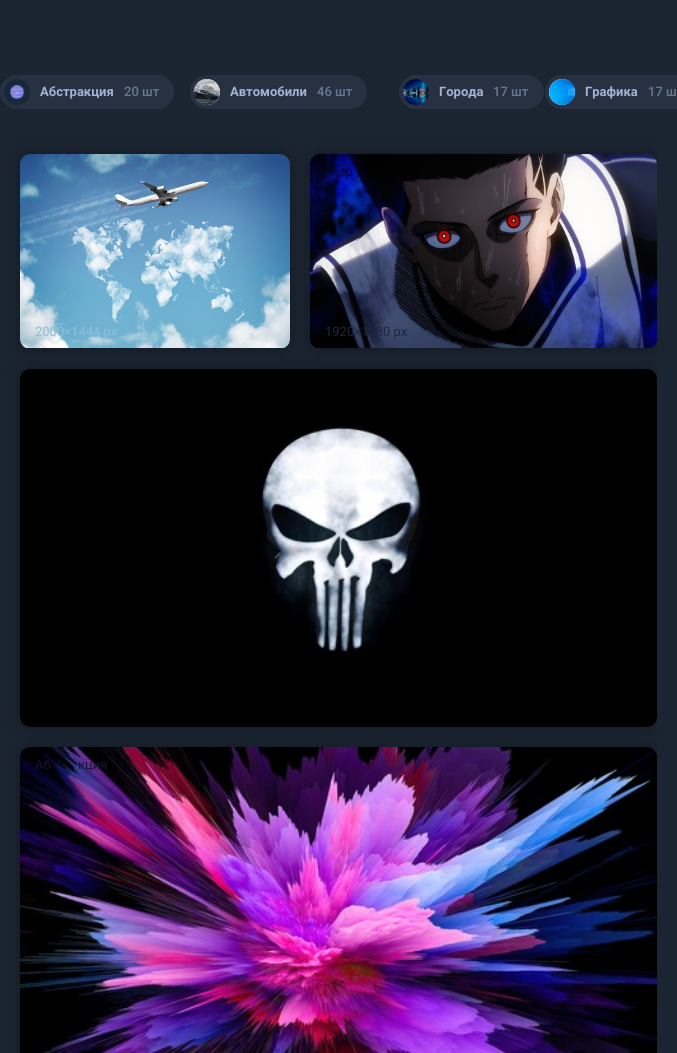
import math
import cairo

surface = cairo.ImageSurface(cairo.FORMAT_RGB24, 677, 1053)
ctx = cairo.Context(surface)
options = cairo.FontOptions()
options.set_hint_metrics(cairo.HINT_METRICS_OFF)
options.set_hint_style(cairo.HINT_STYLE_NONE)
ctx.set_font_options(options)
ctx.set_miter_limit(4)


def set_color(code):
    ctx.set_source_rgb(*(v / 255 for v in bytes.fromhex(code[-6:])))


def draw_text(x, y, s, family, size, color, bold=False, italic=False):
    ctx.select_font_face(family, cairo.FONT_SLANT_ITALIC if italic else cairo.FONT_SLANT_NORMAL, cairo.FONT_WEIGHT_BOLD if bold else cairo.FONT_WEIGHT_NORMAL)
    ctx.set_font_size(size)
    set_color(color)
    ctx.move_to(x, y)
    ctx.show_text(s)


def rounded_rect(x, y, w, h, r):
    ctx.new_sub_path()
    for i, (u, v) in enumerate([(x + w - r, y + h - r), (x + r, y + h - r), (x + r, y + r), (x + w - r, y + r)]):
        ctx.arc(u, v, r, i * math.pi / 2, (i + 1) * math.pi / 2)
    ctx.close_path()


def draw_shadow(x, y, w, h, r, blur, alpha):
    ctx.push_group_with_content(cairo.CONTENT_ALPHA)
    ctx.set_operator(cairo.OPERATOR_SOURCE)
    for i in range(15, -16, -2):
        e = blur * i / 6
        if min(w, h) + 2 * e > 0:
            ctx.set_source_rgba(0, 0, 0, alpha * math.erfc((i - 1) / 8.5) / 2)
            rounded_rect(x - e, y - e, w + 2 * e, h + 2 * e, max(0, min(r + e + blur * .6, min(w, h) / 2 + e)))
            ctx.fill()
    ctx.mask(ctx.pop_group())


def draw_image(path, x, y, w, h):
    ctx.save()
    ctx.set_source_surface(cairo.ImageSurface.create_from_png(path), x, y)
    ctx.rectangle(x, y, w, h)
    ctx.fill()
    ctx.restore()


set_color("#1b2431")
ctx.paint()
set_color("#273142")
rounded_rect(0, 75, 174, 34, 17)
ctx.fill()
draw_image("assets/img1.png", 4, 79, 26, 26)
draw_text(40, 96, "Абстракция", "Roboto", 13, "#a3b4d0", bold=True)
draw_text(124, 96, "20 шт", "Roboto Medium", 13, "#687996")
set_color("#273142")
rounded_rect(190, 75, 177, 34, 17)
ctx.fill()
set_color("#eeeeee")
ctx.arc(207, 92, 13, 0, 2 * math.pi)
ctx.fill()
draw_image("assets/img2.png", 193, 79, 27, 26)
draw_text(230, 96, "Автомобили", "Roboto", 13, "#a3b4d0", bold=True)
draw_text(317, 96, "46 шт", "Roboto Medium", 13, "#687996")
set_color("#273142")
rounded_rect(399, 75, 145, 34, 17)
ctx.fill()
draw_image("assets/img3.png", 403, 79, 26, 26)
draw_text(439, 96, "Города", "Roboto", 13, "#a3b4d0", bold=True)
draw_text(493, 96, "17 шт", "Roboto Medium", 13, "#687996")
set_color("#273142")
ctx.new_path()
ctx.move_to(562, 75)
ctx.line_to(677, 75)
ctx.line_to(677, 109)
ctx.line_to(562, 109)
ctx.curve_to(552.5, 109, 545, 101.5, 545, 92)
ctx.curve_to(545, 82.5, 552.5, 75, 562, 75)
ctx.close_path()
ctx.fill()
set_color("#eeeeee")
ctx.arc(562, 92, 13, 0, 2 * math.pi)
ctx.fill()
draw_image("assets/img4.png", 549, 79, 27, 26)
draw_text(585, 96, "Графика", "Roboto", 13, "#a3b4d0", bold=True)
draw_text(648, 96, "17 ш", "Roboto Medium", 13, "#687996")
set_color("#121922")
draw_shadow(20, 154, 270, 195, 10, 7.5, 1)
draw_image("assets/img5.png", 20, 154, 270, 194)
draw_text(35, 336, "2000×1444 px", "Roboto", 13, "#8ebfd7")
ctx.save()
ctx.rectangle(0, 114, 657, 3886)
ctx.clip()
set_color("#121922")
draw_shadow(310, 154, 347, 195, 10, 7.5, 1)
ctx.restore()
draw_image("assets/img6.png", 310, 154, 347, 194)
draw_text(339, 176, "зр", "Roboto", 13, "#030523")
draw_text(325, 336, "1920×1080 px", "Roboto", 13, "#1e253b")
ctx.save()
ctx.rectangle(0, 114, 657, 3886)
ctx.clip()
set_color("#121922")
draw_shadow(20, 369, 637, 358, 10, 7.5, 1)
ctx.restore()
draw_image("assets/img7.png", 20, 369, 637, 358)
ctx.save()
ctx.rectangle(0, 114, 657, 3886)
ctx.clip()
set_color("#121922")
draw_shadow(20, 747, 637, 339, 10, 7.5, 1)
ctx.restore()
draw_image("assets/img8.png", 20, 747, 637, 306)
draw_text(35, 769, "Аб", "Roboto", 13, "#191135")
draw_text(78, 769, "кция", "Roboto", 13, "#191135")
surface.write_to_png("output.png")
